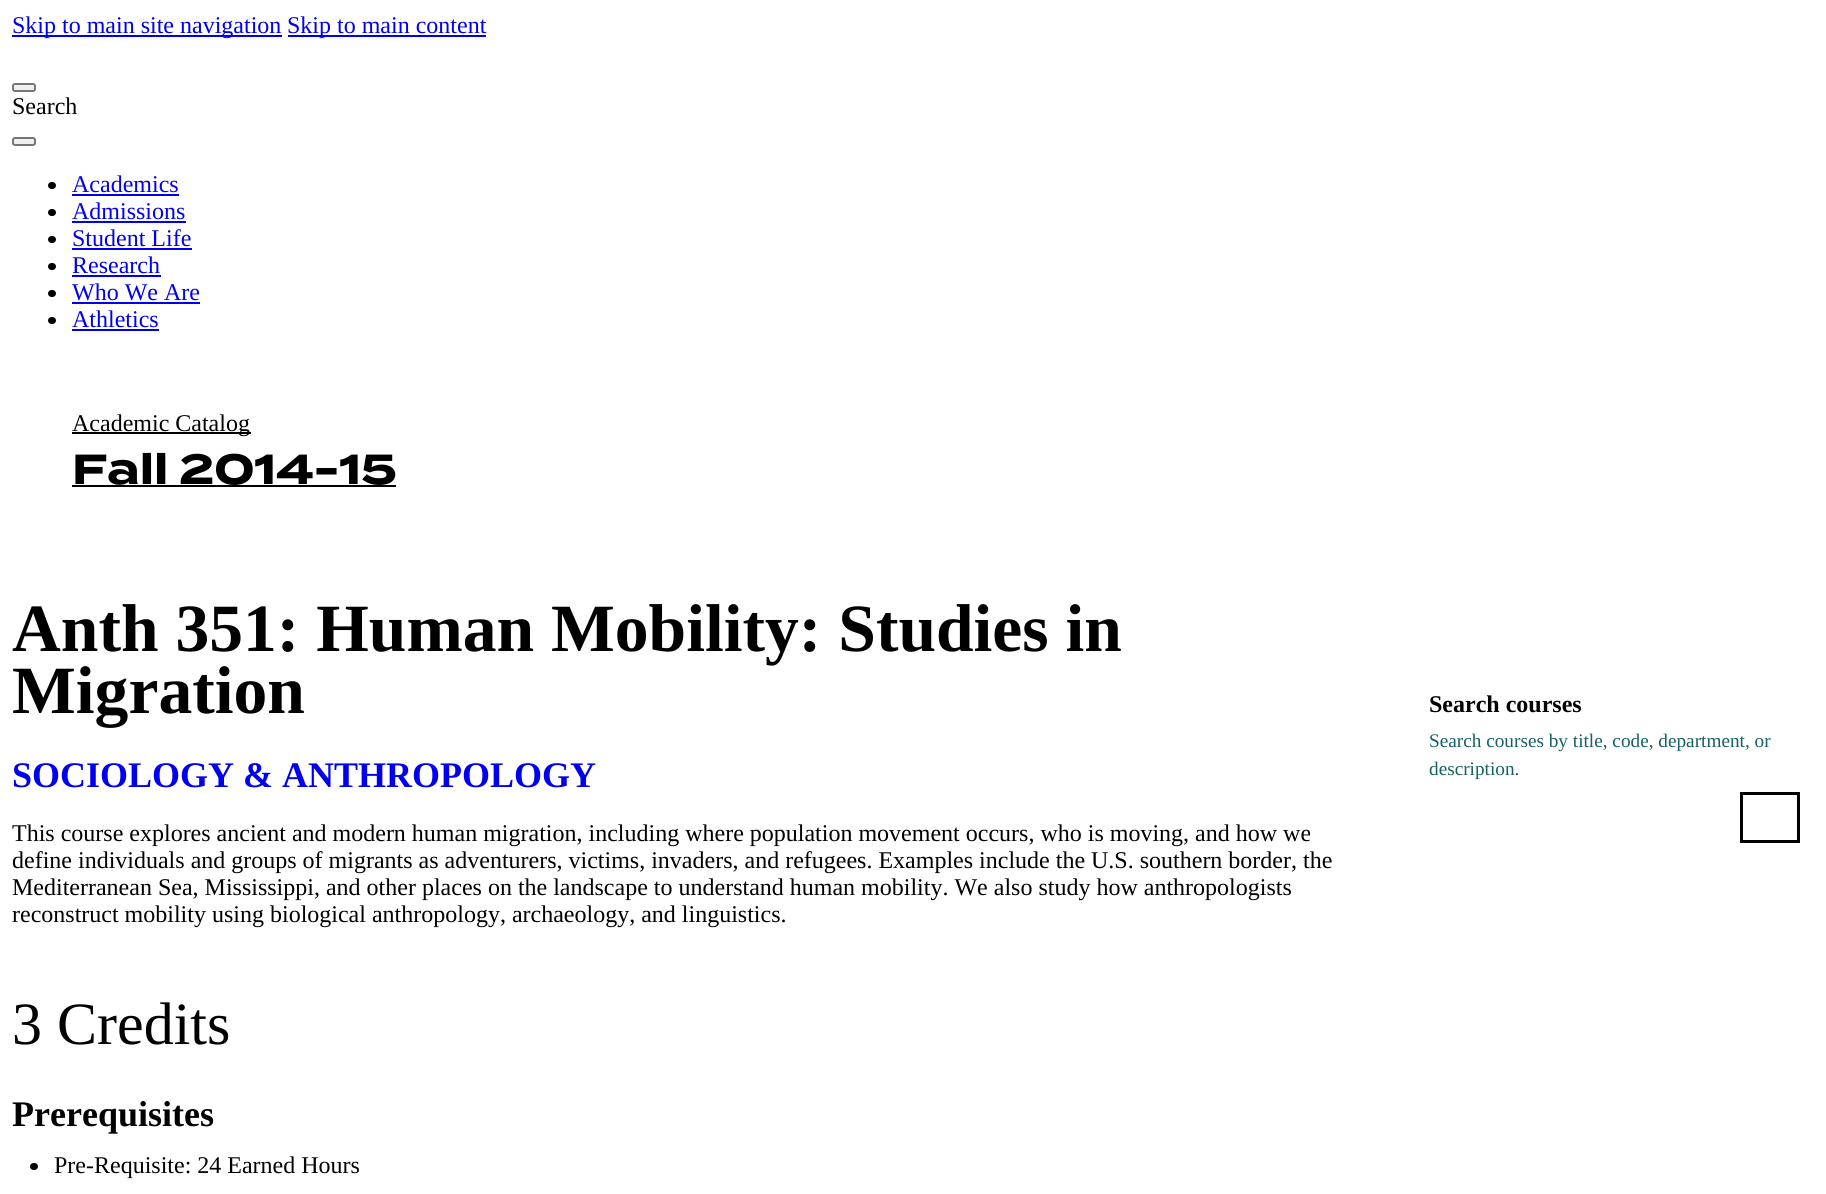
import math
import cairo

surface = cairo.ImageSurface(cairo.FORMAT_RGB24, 1826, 1194)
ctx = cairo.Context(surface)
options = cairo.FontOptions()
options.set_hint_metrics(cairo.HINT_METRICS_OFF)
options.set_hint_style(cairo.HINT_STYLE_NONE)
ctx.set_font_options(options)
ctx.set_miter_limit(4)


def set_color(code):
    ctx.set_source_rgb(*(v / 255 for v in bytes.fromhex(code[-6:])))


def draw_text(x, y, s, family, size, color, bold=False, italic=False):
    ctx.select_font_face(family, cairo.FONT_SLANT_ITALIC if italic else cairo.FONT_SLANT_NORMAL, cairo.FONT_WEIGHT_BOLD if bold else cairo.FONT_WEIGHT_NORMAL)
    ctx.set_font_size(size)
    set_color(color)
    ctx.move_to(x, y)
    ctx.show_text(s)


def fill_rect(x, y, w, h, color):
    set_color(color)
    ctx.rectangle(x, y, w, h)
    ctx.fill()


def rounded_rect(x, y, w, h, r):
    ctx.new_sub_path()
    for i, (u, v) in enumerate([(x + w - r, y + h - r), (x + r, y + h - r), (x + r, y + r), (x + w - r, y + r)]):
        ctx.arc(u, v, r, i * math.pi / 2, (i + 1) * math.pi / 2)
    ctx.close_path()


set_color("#ffffff")
ctx.paint()
fill_rect(12, 35, 270, 2, "#0000ee")
draw_text(12, 33, "Skip to main site navigation", "Liberation Serif", 24, "#0000ee")
fill_rect(288, 35, 198, 2, "#0000ee")
draw_text(287, 33, "Skip to main content", "Liberation Serif", 24, "#0000ee")
set_color("#efefef")
rounded_rect(13, 84, 22, 7, 2)
ctx.fill_preserve()
set_color("#767676")
ctx.stroke()
draw_text(12, 114, "Search", "Liberation Serif", 24, "#000000")
set_color("#efefef")
rounded_rect(13, 138, 22, 7, 2)
ctx.fill_preserve()
set_color("#767676")
ctx.stroke()
set_color("#000000")
rounded_rect(48, 182, 8, 7, 3.5)
ctx.fill()
draw_text(72, 192, "Academics", "Liberation Serif", 24, "#0000ee")
fill_rect(72, 194, 107, 2, "#0000ee")
set_color("#000000")
rounded_rect(48, 209, 8, 7, 3.5)
ctx.fill()
draw_text(72, 219, "Admissions", "Liberation Serif", 24, "#0000ee")
fill_rect(72, 221, 114, 2, "#0000ee")
set_color("#000000")
rounded_rect(48, 236, 8, 7, 3.5)
ctx.fill()
draw_text(72, 246, "Student Life", "Liberation Serif", 24, "#0000ee")
fill_rect(72, 248, 120, 2, "#0000ee")
set_color("#000000")
rounded_rect(48, 263, 8, 7, 3.5)
ctx.fill()
draw_text(72, 273, "Research", "Liberation Serif", 24, "#0000ee")
fill_rect(72, 275, 89, 2, "#0000ee")
set_color("#000000")
rounded_rect(48, 290, 8, 7, 3.5)
ctx.fill()
draw_text(72, 300, "Who We Are", "Liberation Serif", 24, "#0000ee")
fill_rect(72, 302, 128, 2, "#0000ee")
set_color("#000000")
rounded_rect(48, 317, 8, 7, 3.5)
ctx.fill()
draw_text(72, 327, "Athletics", "Liberation Serif", 24, "#0000ee")
fill_rect(72, 329, 87, 2, "#0000ee")
fill_rect(72, 432, 179, 2, "#000000")
draw_text(72, 431, "Academic Catalog", "Liberation Serif", 24, "#000000")
draw_text(72, 484, "Fall 2014-15", "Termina", 42, "#000000", bold=True)
fill_rect(72, 485, 324, 2, "#000000")
draw_text(12, 651, "Anth 351: Human Mobility: Studies in", "Liberation Serif", 67.6, "#000000", bold=True)
draw_text(12, 713, "Migration", "Liberation Serif", 67.6, "#000000", bold=True)
draw_text(12, 787, "SOCIOLOGY & ANTHROPOLOGY", "Liberation Serif", 36, "#0000ee", bold=True)
draw_text(12, 841, "This course explores ancient and modern human migration, including where population movement occurs, who is moving, and how we", "Liberation Serif", 24, "#000000")
draw_text(12, 868, "define individuals and groups of migrants as adventurers, victims, invaders, and refugees. Examples include the U.S. southern border, the", "Liberation Serif", 24, "#000000")
draw_text(12, 895, "Mediterranean Sea, Mississippi, and other places on the landscape to understand human mobility. We also study how anthropologists", "Liberation Serif", 24, "#000000")
draw_text(12, 922, "reconstruct mobility using biological anthropology, archaeology, and linguistics.", "Liberation Serif", 24, "#000000")
draw_text(12, 1044, "3 Credits", "Liberation Serif", 60, "#000000")
draw_text(12, 1126, "Prerequisites", "Liberation Serif", 36, "#000000", bold=True)
rounded_rect(30, 1163, 8, 7, 3.5)
ctx.fill()
draw_text(54, 1173, "Pre-Requisite: 24 Earned Hours", "Liberation Serif", 24, "#000000")
draw_text(1429, 712, "Search courses", "Liberation Serif", 24, "#000000", bold=True)
draw_text(1429, 747, "Search courses by title, code, department, or", "Liberation Serif", 19.25, "#186063")
draw_text(1429, 775, "description.", "Liberation Serif", 19.25, "#186063")
ctx.rectangle(1741.5, 793.5, 57, 48)
set_color("#000000")
ctx.set_line_width(3)
ctx.stroke()
surface.write_to_png("output.png")
